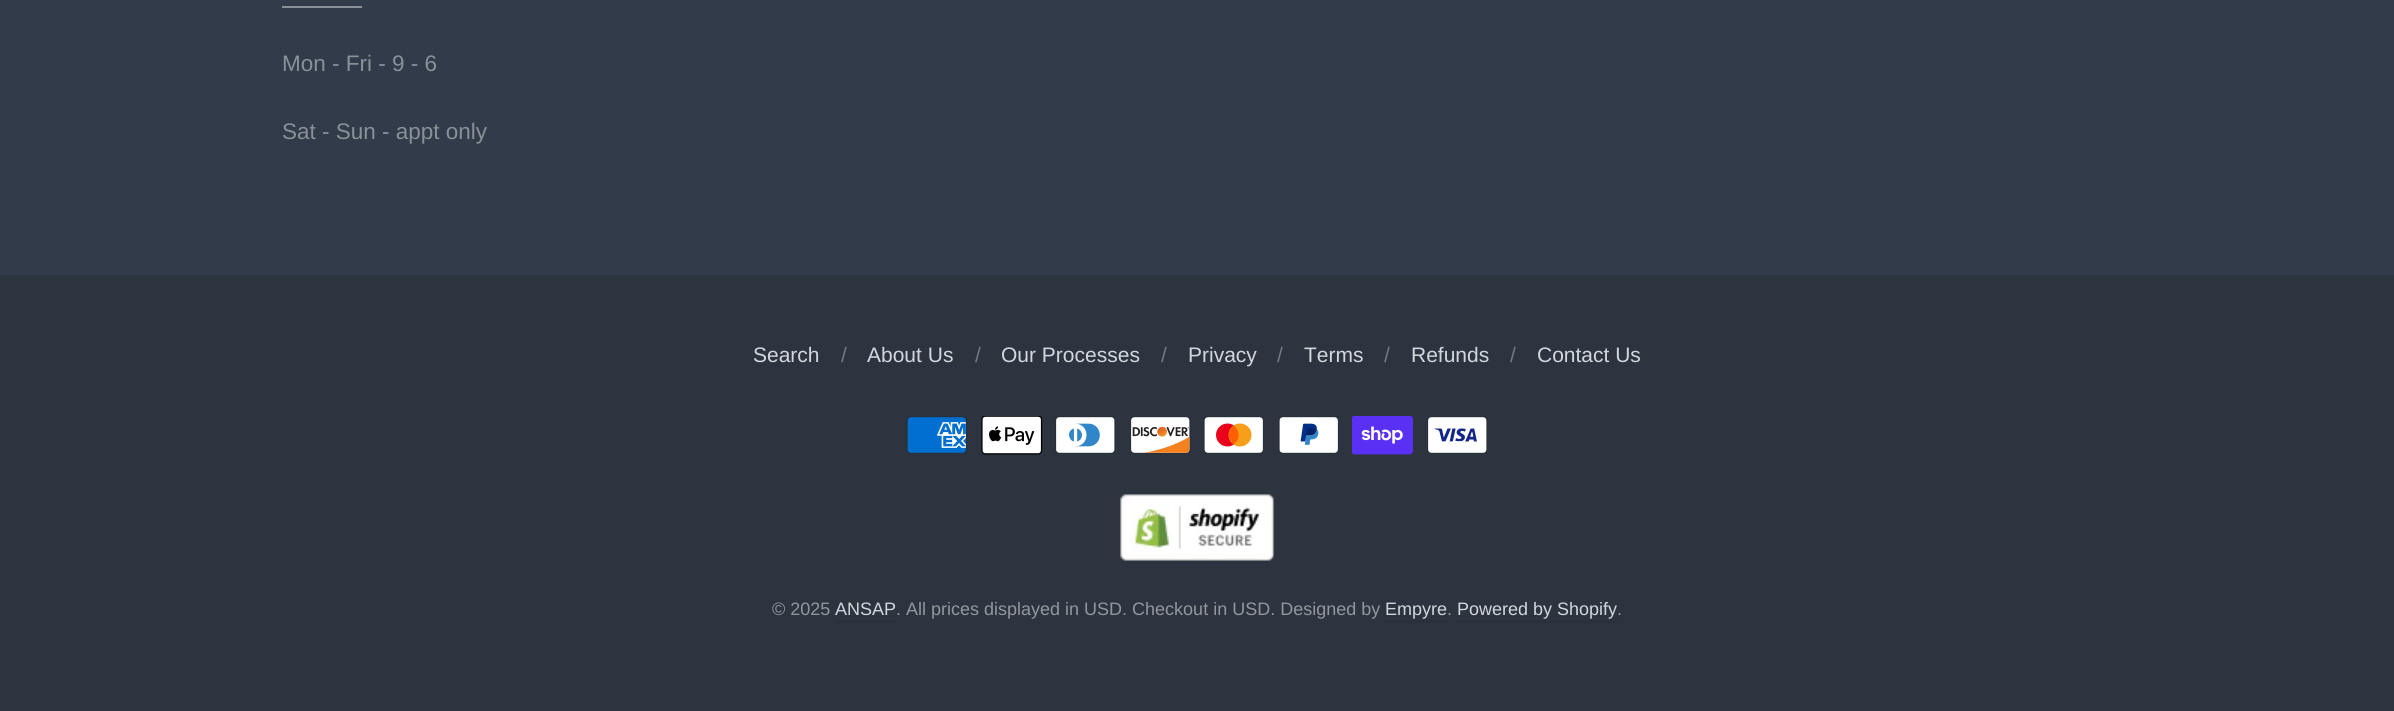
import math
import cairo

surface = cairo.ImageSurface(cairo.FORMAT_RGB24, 2394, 711)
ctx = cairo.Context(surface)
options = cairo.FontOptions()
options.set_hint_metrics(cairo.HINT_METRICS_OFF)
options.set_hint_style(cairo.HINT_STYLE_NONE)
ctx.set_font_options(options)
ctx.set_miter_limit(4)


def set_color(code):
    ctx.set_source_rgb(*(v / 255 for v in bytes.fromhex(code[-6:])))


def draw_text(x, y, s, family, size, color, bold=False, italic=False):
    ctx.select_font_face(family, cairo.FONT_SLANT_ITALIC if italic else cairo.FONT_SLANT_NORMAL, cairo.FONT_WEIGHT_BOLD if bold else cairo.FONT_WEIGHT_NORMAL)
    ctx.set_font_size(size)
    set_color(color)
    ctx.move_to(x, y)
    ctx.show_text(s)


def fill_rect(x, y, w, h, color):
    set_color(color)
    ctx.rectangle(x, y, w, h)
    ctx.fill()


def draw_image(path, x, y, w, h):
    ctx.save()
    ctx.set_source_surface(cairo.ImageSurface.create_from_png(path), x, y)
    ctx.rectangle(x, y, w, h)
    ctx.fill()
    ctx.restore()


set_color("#2c343f")
ctx.paint()
fill_rect(0, 0, 2394, 275, "#313b49")
fill_rect(282, 6, 80, 2, "#8a9098")
draw_text(282, 71, "Mon - Fri - 9 - 6", "Liberation Sans", 22.5, "#8a9098")
draw_text(282, 139, "Sat - Sun - appt only", "Liberation Sans", 22.5, "#8a9098")
draw_text(753, 362, "Search", "Liberation Sans", 21, "#d3d7dd")
draw_text(841, 362, "/", "Liberation Sans", 21, "#747981")
draw_text(867, 362, "About Us", "Liberation Sans", 21, "#d3d7dd")
draw_text(975, 362, "/", "Liberation Sans", 21, "#747981")
draw_text(1001, 362, "Our Processes", "Liberation Sans", 21, "#d3d7dd")
draw_text(1161, 362, "/", "Liberation Sans", 21, "#747981")
draw_text(1188, 362, "Privacy", "Liberation Sans", 21, "#d3d7dd")
draw_text(1277, 362, "/", "Liberation Sans", 21, "#747981")
draw_text(1304, 362, "Terms", "Liberation Sans", 21, "#d3d7dd")
draw_text(1384, 362, "/", "Liberation Sans", 21, "#747981")
draw_text(1411, 362, "Refunds", "Liberation Sans", 21, "#d3d7dd")
draw_text(1510, 362, "/", "Liberation Sans", 21, "#747981")
draw_text(1537, 362, "Contact Us", "Liberation Sans", 21, "#d3d7dd")
draw_image("assets/img1.png", 906, 416, 61, 38)
draw_image("assets/img2.png", 981, 416, 62, 39)
draw_image("assets/img3.png", 1055, 416, 61, 38)
draw_image("assets/img4.png", 1130, 416, 61, 38)
draw_image("assets/img5.png", 1203, 416, 61, 38)
draw_image("assets/img6.png", 1278, 416, 61, 38)
draw_image("assets/img7.png", 1352, 416, 61, 39)
draw_image("assets/img8.png", 1427, 416, 61, 38)
draw_image("assets/img9.png", 1120, 494, 154, 67)
draw_text(772, 615, "© 2025", "Liberation Sans", 18, "#93979d")
draw_text(835, 615, "ANSAP", "Liberation Sans", 18, "#d3d7dd")
fill_rect(836, 620, 60, 3, "#2a313c")
draw_text(896, 615, ". All prices displayed in USD. Checkout in USD. Designed by", "Liberation Sans", 18, "#93979d")
draw_text(1385, 615, "Empyre", "Liberation Sans", 18, "#d3d7dd")
fill_rect(1385, 620, 63, 3, "#2a313c")
draw_text(1447, 615, ".", "Liberation Sans", 18, "#93979d")
draw_text(1457, 615, "Powered by Shopify", "Liberation Sans", 18, "#d3d7dd")
fill_rect(1458, 620, 159, 3, "#2a313c")
draw_text(1617, 615, ".", "Liberation Sans", 18, "#93979d")
surface.write_to_png("output.png")
